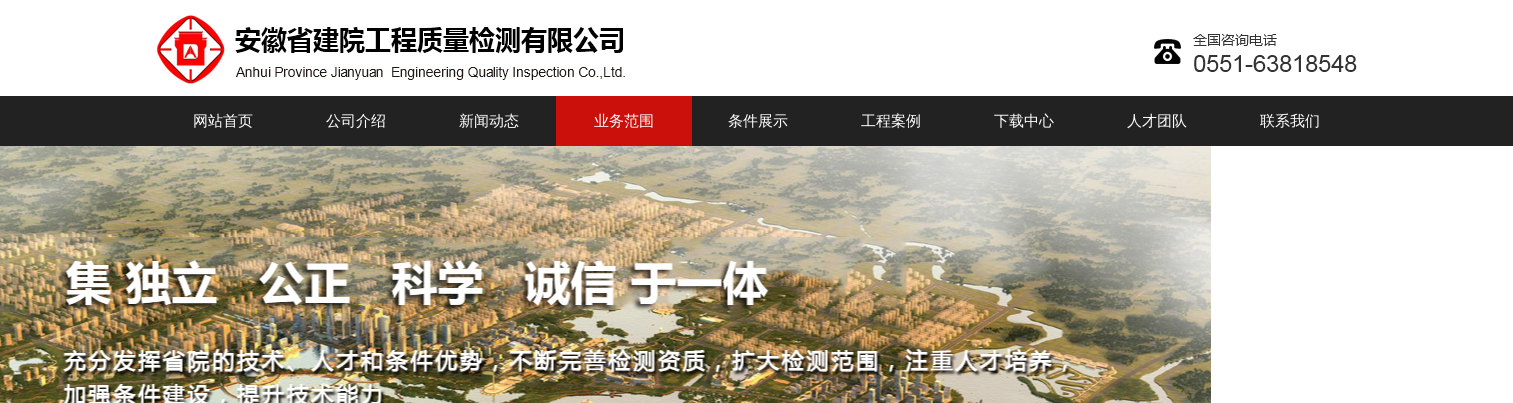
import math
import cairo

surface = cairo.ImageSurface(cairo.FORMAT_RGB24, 1513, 403)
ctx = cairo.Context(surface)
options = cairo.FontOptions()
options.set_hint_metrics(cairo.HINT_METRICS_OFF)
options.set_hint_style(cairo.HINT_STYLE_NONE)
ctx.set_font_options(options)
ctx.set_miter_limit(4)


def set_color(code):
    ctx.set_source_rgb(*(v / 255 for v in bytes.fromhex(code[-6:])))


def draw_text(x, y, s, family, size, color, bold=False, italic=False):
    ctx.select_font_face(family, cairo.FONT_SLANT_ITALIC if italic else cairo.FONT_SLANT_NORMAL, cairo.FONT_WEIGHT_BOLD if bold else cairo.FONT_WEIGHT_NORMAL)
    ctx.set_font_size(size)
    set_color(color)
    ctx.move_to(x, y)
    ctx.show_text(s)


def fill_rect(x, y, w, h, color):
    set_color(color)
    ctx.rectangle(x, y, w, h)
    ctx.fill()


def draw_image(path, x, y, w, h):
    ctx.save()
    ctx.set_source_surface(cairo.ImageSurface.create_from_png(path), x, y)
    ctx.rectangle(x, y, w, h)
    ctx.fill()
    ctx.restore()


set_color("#ffffff")
ctx.paint()
draw_image("assets/img1.png", 157, 15, 1200, 70)
fill_rect(0, 96, 1513, 50, "#222222")
draw_text(193, 126, "网站首页", "WenQuanYi Zen Hei Medium", 15, "#ffffff")
draw_text(326, 126, "公司介绍", "WenQuanYi Zen Hei Medium", 15, "#ffffff")
draw_text(459, 126, "新闻动态", "WenQuanYi Zen Hei Medium", 15, "#ffffff")
fill_rect(556, 96, 136, 50, "#cb0f0b")
draw_text(594, 126, "业务范围", "WenQuanYi Zen Hei Medium", 15, "#ffffff")
draw_text(728, 126, "条件展示", "WenQuanYi Zen Hei Medium", 15, "#ffffff")
draw_text(861, 126, "工程案例", "WenQuanYi Zen Hei Medium", 15, "#ffffff")
draw_text(994, 126, "下载中心", "WenQuanYi Zen Hei Medium", 15, "#ffffff")
draw_text(1127, 126, "人才团队", "WenQuanYi Zen Hei Medium", 15, "#ffffff")
draw_text(1260, 126, "联系我们", "WenQuanYi Zen Hei Medium", 15, "#ffffff")
draw_image("assets/img2.png", 0, 146, 1211, 257)
surface.write_to_png("output.png")
